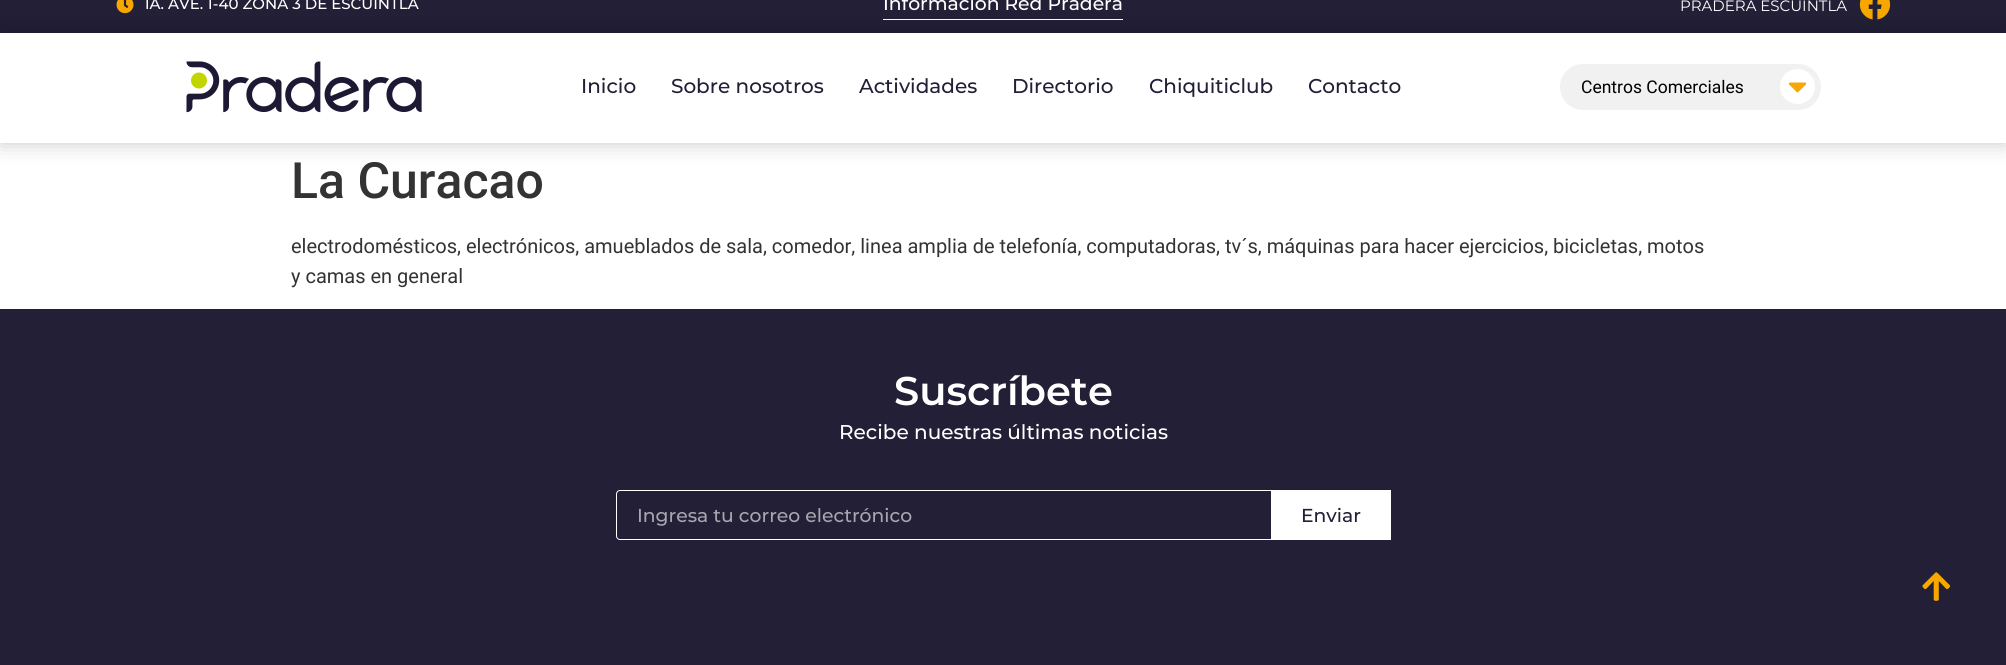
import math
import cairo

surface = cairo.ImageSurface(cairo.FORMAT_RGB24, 2006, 665)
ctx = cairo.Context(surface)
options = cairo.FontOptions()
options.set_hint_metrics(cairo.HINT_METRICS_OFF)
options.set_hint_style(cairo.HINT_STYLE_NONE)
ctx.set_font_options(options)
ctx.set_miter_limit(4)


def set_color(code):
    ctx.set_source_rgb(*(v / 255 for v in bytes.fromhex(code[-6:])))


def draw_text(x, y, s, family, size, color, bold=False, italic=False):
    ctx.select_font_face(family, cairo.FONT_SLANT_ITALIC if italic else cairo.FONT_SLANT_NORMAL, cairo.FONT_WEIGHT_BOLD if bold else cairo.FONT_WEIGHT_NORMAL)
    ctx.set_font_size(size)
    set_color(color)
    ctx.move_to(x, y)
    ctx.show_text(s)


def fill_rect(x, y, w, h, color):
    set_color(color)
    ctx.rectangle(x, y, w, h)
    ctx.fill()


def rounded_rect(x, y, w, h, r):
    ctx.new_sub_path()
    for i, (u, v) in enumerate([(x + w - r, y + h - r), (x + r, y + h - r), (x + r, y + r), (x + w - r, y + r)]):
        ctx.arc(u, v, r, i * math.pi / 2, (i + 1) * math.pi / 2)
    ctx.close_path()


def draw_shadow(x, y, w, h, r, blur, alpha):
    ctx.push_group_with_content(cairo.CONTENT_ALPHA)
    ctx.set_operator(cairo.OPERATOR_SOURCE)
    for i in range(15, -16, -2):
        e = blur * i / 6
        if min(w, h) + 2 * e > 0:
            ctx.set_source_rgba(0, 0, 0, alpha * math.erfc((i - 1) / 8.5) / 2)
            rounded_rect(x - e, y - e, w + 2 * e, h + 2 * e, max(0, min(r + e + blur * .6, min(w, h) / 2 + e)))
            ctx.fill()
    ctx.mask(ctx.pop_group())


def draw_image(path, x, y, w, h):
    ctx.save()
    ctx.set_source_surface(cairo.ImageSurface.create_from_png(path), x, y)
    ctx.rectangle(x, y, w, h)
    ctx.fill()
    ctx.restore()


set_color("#ffffff")
ctx.paint()
fill_rect(0, 0, 2006, 33, "#221f36")
draw_image("assets/img1.png", 116, 0, 18, 14)
draw_text(144, 9, "1A. AVE. 1-40 ZONA 3 DE ESCUINTLA", "Montserrat Medium", 15, "#ffffff")
fill_rect(883, 19, 240, 1, "#ffffff")
draw_text(883, 10, "Información Red Pradera", "Montserrat Medium", 18.75, "#ffffff")
draw_text(1680, 11, "PRADERA ESCUINTLA", "Montserrat", 15, "#ffffff")
draw_image("assets/img2.png", 1859, 0, 32, 20)
set_color("#000000")
draw_shadow(0, 33, 2006, 110, 0, 10.5, 0.22)
fill_rect(0, 33, 2006, 110, "#ffffff")
draw_image("assets/img3.png", 186, 61, 236, 52)
draw_text(581, 93, "Inicio", "Montserrat Medium", 20, "#221f36")
draw_text(671, 93, "Sobre nosotros", "Montserrat Medium", 20, "#221f36")
draw_text(859, 93, "Actividades", "Montserrat Medium", 20, "#221f36")
draw_text(1012, 93, "Directorio", "Montserrat Medium", 20, "#221f36")
draw_text(1149, 93, "Chiquiticlub", "Montserrat Medium", 20, "#221f36")
draw_text(1308, 93, "Contacto", "Montserrat Medium", 20, "#221f36")
set_color("#f1f1f1")
rounded_rect(1560, 64, 261, 46, 23)
ctx.fill()
draw_text(1581, 93, "Centros Comerciales", "Roboto", 17.5, "#000000")
set_color("#ffffff")
ctx.new_path()
ctx.arc(1797.5, 86.5, 17.5, 0, 2 * math.pi)
ctx.fill()
draw_image("assets/img4.png", 1788, 82, 19, 11)
draw_text(291, 198, "La Curacao", "Roboto Medium", 50, "#333333")
draw_text(291, 253, "electrodomésticos, electrónicos, amueblados de sala, comedor, linea amplia de telefonía, computadoras, tv´s, máquinas para hacer ejercicios, bicicletas, motos", "Roboto", 20, "#333333")
draw_text(291, 283, "y camas en general", "Roboto", 20, "#333333")
fill_rect(0, 309, 2006, 356, "#221f36")
draw_text(894, 405, "Suscríbete", "Montserrat SemiBold", 40, "#ffffff")
draw_text(839, 439, "Recibe nuestras últimas noticias", "Montserrat Medium", 20, "#ffffff")
rounded_rect(616.5, 490.5, 774, 49, 3.5)
ctx.set_line_width(1)
ctx.stroke()
draw_text(637, 522, "Ingresa tu correo electrónico", "Montserrat Medium", 18.75, "#a7a5af")
fill_rect(1271, 490, 120, 50, "#ffffff")
draw_text(1301, 522, "Enviar", "Montserrat Medium", 18.75, "#221f36")
draw_image("assets/img5.png", 1922, 572, 29, 29)
surface.write_to_png("output.png")
